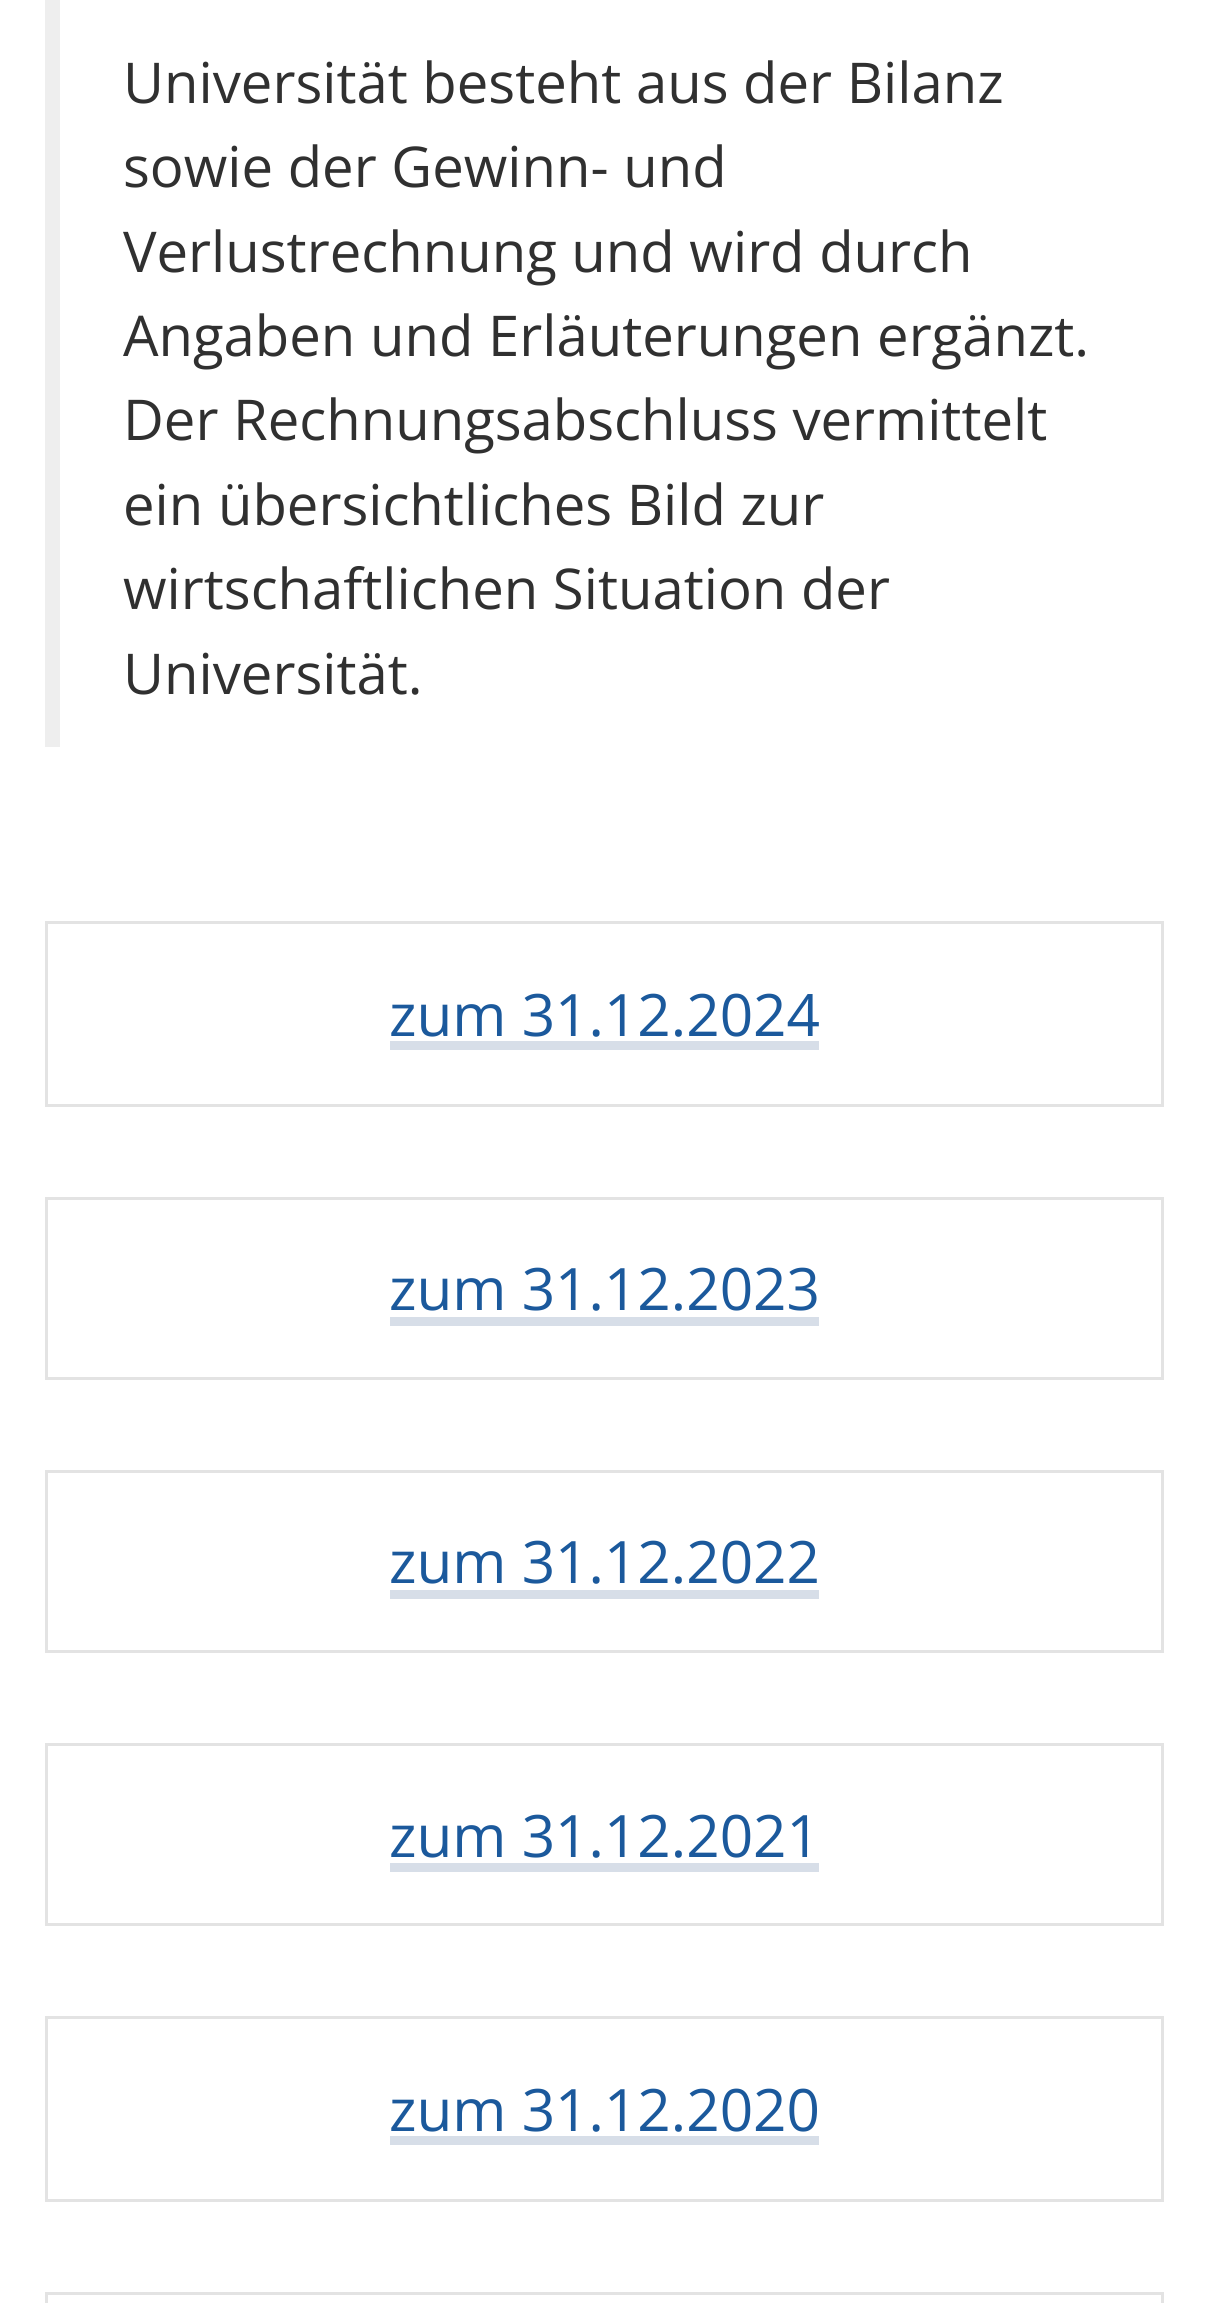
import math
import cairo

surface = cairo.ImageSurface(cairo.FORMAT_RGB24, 1209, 2303)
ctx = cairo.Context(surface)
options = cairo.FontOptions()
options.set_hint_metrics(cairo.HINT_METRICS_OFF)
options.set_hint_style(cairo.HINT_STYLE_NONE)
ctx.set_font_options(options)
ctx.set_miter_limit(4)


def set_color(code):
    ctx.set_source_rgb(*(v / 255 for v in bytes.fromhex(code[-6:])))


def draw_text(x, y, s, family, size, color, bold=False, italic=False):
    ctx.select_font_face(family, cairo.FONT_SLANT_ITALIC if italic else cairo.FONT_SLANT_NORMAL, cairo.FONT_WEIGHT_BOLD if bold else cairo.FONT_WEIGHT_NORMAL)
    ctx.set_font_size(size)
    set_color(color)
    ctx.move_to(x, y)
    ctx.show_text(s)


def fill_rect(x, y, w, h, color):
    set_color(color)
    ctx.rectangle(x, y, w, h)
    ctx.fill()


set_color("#ffffff")
ctx.paint()
fill_rect(45, 0, 15, 747, "#eeeeee")
draw_text(123, 103, "Universität besteht aus der Bilanz", "Open Sans", 56.25, "#303030")
draw_text(123, 187, "sowie der Gewinn- und", "Open Sans", 56.25, "#303030")
draw_text(123, 272, "Verlustrechnung und wird durch", "Open Sans", 56.25, "#303030")
draw_text(123, 356, "Angaben und Erläuterungen ergänzt.", "Open Sans", 56.25, "#303030")
draw_text(123, 440, "Der Rechnungsabschluss vermittelt", "Open Sans", 56.25, "#303030")
draw_text(123, 525, "ein übersichtliches Bild zur", "Open Sans", 56.25, "#303030")
draw_text(123, 609, "wirtschaftlichen Situation der", "Open Sans", 56.25, "#303030")
draw_text(123, 694, "Universität.", "Open Sans", 56.25, "#303030")
ctx.rectangle(46.5, 922.5, 1116, 183)
set_color("#e3e3e3")
ctx.set_line_width(3)
ctx.stroke()
draw_text(389, 1036, "zum 31.12.2024", "Open Sans", 58.5, "#1b599c")
fill_rect(390, 1041, 429, 9, "#d7dee8")
ctx.rectangle(46.5, 1198.5, 1116, 180)
set_color("#e3e3e3")
ctx.stroke()
draw_text(389, 1310, "zum 31.12.2023", "Open Sans", 58.5, "#1b599c")
fill_rect(390, 1317, 429, 9, "#d7dee8")
ctx.rectangle(46.5, 1471.5, 1116, 180)
set_color("#e3e3e3")
ctx.stroke()
draw_text(389, 1583, "zum 31.12.2022", "Open Sans", 58.5, "#1b599c")
fill_rect(390, 1590, 429, 9, "#d7dee8")
ctx.rectangle(46.5, 1744.5, 1116, 180)
set_color("#e3e3e3")
ctx.stroke()
draw_text(389, 1857, "zum 31.12.2021", "Open Sans", 58.5, "#1b599c")
fill_rect(390, 1863, 429, 9, "#d7dee8")
ctx.rectangle(46.5, 2017.5, 1116, 183)
set_color("#e3e3e3")
ctx.stroke()
draw_text(389, 2131, "zum 31.12.2020", "Open Sans", 58.5, "#1b599c")
fill_rect(390, 2136, 429, 9, "#d7dee8")
ctx.rectangle(46.5, 2293.5, 1116, 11)
set_color("#e3e3e3")
ctx.stroke()
surface.write_to_png("output.png")
